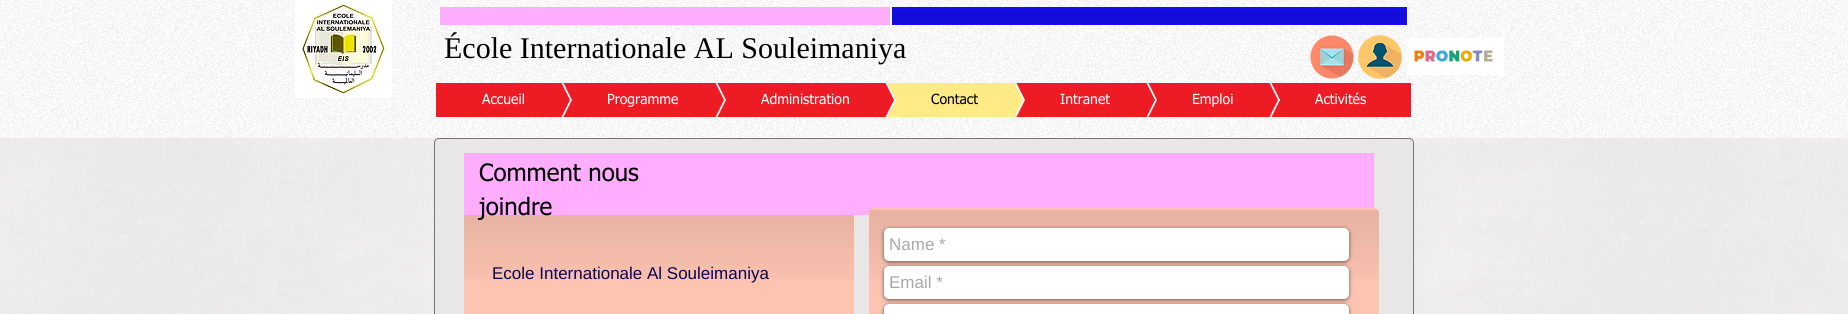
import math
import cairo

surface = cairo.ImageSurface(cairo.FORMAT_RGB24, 1848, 314)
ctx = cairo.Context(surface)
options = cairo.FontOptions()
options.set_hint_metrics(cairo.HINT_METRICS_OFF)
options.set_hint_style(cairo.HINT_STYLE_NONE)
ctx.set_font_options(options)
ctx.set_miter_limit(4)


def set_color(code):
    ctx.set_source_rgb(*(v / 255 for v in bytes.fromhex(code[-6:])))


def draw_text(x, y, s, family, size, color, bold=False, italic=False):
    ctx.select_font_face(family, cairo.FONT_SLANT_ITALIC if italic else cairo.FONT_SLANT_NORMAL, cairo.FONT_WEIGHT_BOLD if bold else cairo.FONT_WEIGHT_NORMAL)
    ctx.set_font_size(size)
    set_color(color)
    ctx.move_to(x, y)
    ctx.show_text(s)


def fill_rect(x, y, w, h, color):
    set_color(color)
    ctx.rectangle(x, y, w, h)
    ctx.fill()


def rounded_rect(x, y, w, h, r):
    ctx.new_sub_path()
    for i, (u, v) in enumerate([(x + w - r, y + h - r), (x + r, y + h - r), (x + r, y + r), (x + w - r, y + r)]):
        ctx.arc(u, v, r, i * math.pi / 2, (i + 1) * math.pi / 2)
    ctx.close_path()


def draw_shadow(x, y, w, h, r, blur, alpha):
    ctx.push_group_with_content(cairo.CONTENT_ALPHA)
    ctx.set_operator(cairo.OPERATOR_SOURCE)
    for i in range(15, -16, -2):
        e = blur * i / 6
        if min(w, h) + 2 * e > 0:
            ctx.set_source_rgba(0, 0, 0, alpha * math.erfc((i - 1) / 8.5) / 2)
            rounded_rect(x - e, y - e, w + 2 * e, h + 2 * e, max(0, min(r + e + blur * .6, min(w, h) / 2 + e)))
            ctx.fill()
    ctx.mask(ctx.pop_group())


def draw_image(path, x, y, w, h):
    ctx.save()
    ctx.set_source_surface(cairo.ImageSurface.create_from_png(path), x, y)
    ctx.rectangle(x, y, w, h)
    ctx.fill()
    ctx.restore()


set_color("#e8e6e6")
ctx.paint()
fill_rect(0, 0, 1848, 138, "#ffffff")
draw_image("assets/img1.png", 0, 0, 1848, 138)
draw_image("assets/img2.png", 295, 0, 97, 98)
fill_rect(440, 7, 450, 18, "#ffadff")
fill_rect(893, 8, 513, 2, "#170df2")
fill_rect(893, 10, 513, 14, "#150cdc")
ctx.rectangle(892.5, 7.5, 514, 17)
set_color("#170df2")
ctx.set_line_width(1)
ctx.stroke()
draw_text(444, 58, "École Internationale AL Souleimaniya", "Liberation Serif", 30, "#000000")
draw_image("assets/img3.png", 1310, 35, 44, 44)
draw_image("assets/img4.png", 1358, 35, 44, 44)
draw_image("assets/img5.png", 1407, 38, 97, 37)
fill_rect(436, 83, 64, 34, "#ed1c24")
ctx.save()
ctx.rectangle(500, 83, 70, 34)
ctx.clip()
ctx.new_path()
ctx.move_to(570, 100)
ctx.line_to(500, 100)
ctx.line_to(500, -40)
ctx.close_path()
ctx.fill()
ctx.new_path()
ctx.move_to(500, 100)
ctx.line_to(570, 100)
ctx.line_to(500, 240)
ctx.close_path()
ctx.fill()
ctx.restore()
draw_text(482, 104, "Accueil", "tahoma", 14, "#ffffff")
ctx.save()
ctx.rectangle(502, 83, 70, 34)
ctx.clip()
set_color("#ed1c24")
ctx.new_path()
ctx.move_to(502, -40)
ctx.line_to(572, -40)
ctx.line_to(572, 100)
ctx.close_path()
ctx.move_to(572, 240)
ctx.line_to(502, 240)
ctx.line_to(572, 100)
ctx.close_path()
ctx.fill()
ctx.restore()
fill_rect(572, 83, 82, 34, "#ed1c24")
ctx.save()
ctx.rectangle(654, 83, 70, 34)
ctx.clip()
ctx.new_path()
ctx.move_to(724, 100)
ctx.line_to(654, 100)
ctx.line_to(654, -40)
ctx.close_path()
ctx.fill()
ctx.new_path()
ctx.move_to(654, 100)
ctx.line_to(724, 100)
ctx.line_to(654, 240)
ctx.close_path()
ctx.fill()
ctx.restore()
draw_text(607, 104, "Programme", "tahoma", 14, "#ffffff")
ctx.save()
ctx.rectangle(656, 83, 70, 34)
ctx.clip()
set_color("#ed1c24")
ctx.new_path()
ctx.move_to(656, -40)
ctx.line_to(726, -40)
ctx.line_to(726, 100)
ctx.close_path()
ctx.move_to(726, 240)
ctx.line_to(656, 240)
ctx.line_to(726, 100)
ctx.close_path()
ctx.fill()
ctx.restore()
fill_rect(726, 83, 98, 34, "#ed1c24")
ctx.save()
ctx.rectangle(824, 83, 70, 34)
ctx.clip()
ctx.new_path()
ctx.move_to(894, 100)
ctx.line_to(824, 100)
ctx.line_to(824, -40)
ctx.close_path()
ctx.fill()
ctx.new_path()
ctx.move_to(824, 100)
ctx.line_to(894, 100)
ctx.line_to(824, 240)
ctx.close_path()
ctx.fill()
ctx.restore()
draw_text(761, 104, "Administration", "tahoma", 14, "#ffffff")
ctx.save()
ctx.rectangle(826, 83, 70, 34)
ctx.clip()
set_color("#feeb85")
ctx.new_path()
ctx.move_to(826, -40)
ctx.line_to(896, -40)
ctx.line_to(896, 100)
ctx.close_path()
ctx.move_to(896, 240)
ctx.line_to(826, 240)
ctx.line_to(896, 100)
ctx.close_path()
ctx.fill()
ctx.restore()
fill_rect(896, 83, 57, 34, "#feeb85")
ctx.save()
ctx.rectangle(953, 83, 70, 34)
ctx.clip()
ctx.new_path()
ctx.move_to(1023, 100)
ctx.line_to(953, 100)
ctx.line_to(953, -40)
ctx.close_path()
ctx.fill()
ctx.new_path()
ctx.move_to(953, 100)
ctx.line_to(1023, 100)
ctx.line_to(953, 240)
ctx.close_path()
ctx.fill()
ctx.restore()
draw_text(931, 104, "Contact", "tahoma", 14, "#000000")
ctx.save()
ctx.rectangle(955, 83, 70, 34)
ctx.clip()
set_color("#ed1c24")
ctx.new_path()
ctx.move_to(955, -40)
ctx.line_to(1025, -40)
ctx.line_to(1025, 100)
ctx.close_path()
ctx.move_to(1025, 240)
ctx.line_to(955, 240)
ctx.line_to(1025, 100)
ctx.close_path()
ctx.fill()
ctx.restore()
fill_rect(1025, 83, 60, 34, "#ed1c24")
ctx.save()
ctx.rectangle(1085, 83, 70, 34)
ctx.clip()
ctx.new_path()
ctx.move_to(1155, 100)
ctx.line_to(1085, 100)
ctx.line_to(1085, -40)
ctx.close_path()
ctx.fill()
ctx.new_path()
ctx.move_to(1085, 100)
ctx.line_to(1155, 100)
ctx.line_to(1085, 240)
ctx.close_path()
ctx.fill()
ctx.restore()
draw_text(1060, 104, "Intranet", "tahoma", 14, "#ffffff")
ctx.save()
ctx.rectangle(1087, 83, 70, 34)
ctx.clip()
set_color("#ed1c24")
ctx.new_path()
ctx.move_to(1087, -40)
ctx.line_to(1157, -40)
ctx.line_to(1157, 100)
ctx.close_path()
ctx.move_to(1157, 240)
ctx.line_to(1087, 240)
ctx.line_to(1157, 100)
ctx.close_path()
ctx.fill()
ctx.restore()
fill_rect(1157, 83, 51, 34, "#ed1c24")
ctx.save()
ctx.rectangle(1208, 83, 70, 34)
ctx.clip()
ctx.new_path()
ctx.move_to(1278, 100)
ctx.line_to(1208, 100)
ctx.line_to(1208, -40)
ctx.close_path()
ctx.fill()
ctx.new_path()
ctx.move_to(1208, 100)
ctx.line_to(1278, 100)
ctx.line_to(1208, 240)
ctx.close_path()
ctx.fill()
ctx.restore()
draw_text(1192, 104, "Emploi", "tahoma", 14, "#ffffff")
ctx.save()
ctx.rectangle(1210, 83, 70, 34)
ctx.clip()
set_color("#ed1c24")
ctx.new_path()
ctx.move_to(1210, -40)
ctx.line_to(1280, -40)
ctx.line_to(1280, 100)
ctx.close_path()
ctx.move_to(1280, 240)
ctx.line_to(1210, 240)
ctx.line_to(1280, 100)
ctx.close_path()
ctx.fill()
ctx.restore()
fill_rect(1280, 83, 131, 34, "#ed1c24")
draw_text(1315, 104, "Activités", "tahoma", 14, "#ffffff")
draw_image("assets/img8.png", 0, 138, 1848, 176)
set_color("#e8e6e6")
rounded_rect(434.5, 138.5, 979, 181, 4.5)
ctx.fill_preserve()
set_color("#757575")
ctx.stroke()
fill_rect(464, 153, 910, 62, "#ffadff")
draw_text(479, 181, "Comment nous", "tahoma", 24, "#000000")
fill_rect(464, 215, 390, 99, "#fec4b2")
draw_image("assets/img6.png", 464, 215, 390, 64)
draw_text(479, 215, "joindre", "tahoma", 24, "#000000")
draw_text(492, 279, "Ecole Internationale Al Souleimaniya", "Liberation Sans", 17, "#080451")
set_color("#fec4b2")
rounded_rect(869, 208, 510, 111, 5)
ctx.fill()
draw_image("assets/img7.png", 869, 210, 510, 69)
set_color("#000000")
draw_shadow(884, 229, 465, 33, 5, 2, 0.6)
set_color("#ffffff")
rounded_rect(884, 228, 465, 33, 5)
ctx.fill()
draw_text(889, 250, "Name *", "Liberation Sans", 17, "#a9a9a9")
set_color("#000000")
draw_shadow(884, 267, 465, 33, 5, 2, 0.6)
set_color("#ffffff")
rounded_rect(884, 266, 465, 33, 5)
ctx.fill()
draw_text(889, 288, "Email *", "Liberation Sans", 17, "#a9a9a9")
set_color("#000000")
draw_shadow(884, 305, 465, 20, 5, 2, 0.6)
set_color("#ffffff")
rounded_rect(884, 304, 465, 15, 5)
ctx.fill()
surface.write_to_png("output.png")
